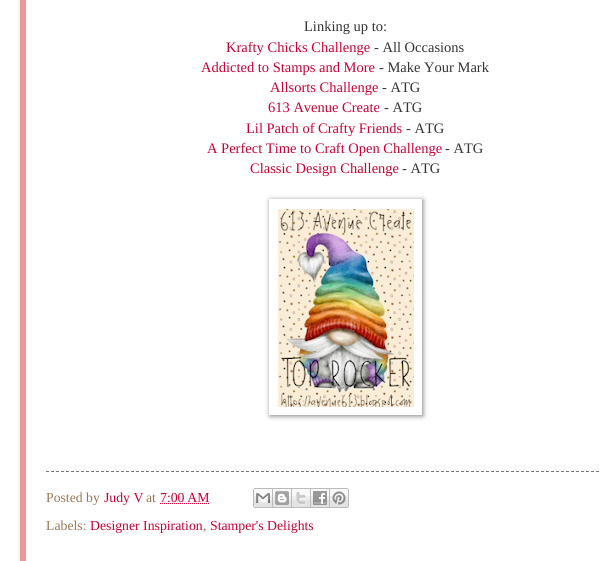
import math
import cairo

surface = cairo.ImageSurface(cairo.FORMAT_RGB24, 599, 561)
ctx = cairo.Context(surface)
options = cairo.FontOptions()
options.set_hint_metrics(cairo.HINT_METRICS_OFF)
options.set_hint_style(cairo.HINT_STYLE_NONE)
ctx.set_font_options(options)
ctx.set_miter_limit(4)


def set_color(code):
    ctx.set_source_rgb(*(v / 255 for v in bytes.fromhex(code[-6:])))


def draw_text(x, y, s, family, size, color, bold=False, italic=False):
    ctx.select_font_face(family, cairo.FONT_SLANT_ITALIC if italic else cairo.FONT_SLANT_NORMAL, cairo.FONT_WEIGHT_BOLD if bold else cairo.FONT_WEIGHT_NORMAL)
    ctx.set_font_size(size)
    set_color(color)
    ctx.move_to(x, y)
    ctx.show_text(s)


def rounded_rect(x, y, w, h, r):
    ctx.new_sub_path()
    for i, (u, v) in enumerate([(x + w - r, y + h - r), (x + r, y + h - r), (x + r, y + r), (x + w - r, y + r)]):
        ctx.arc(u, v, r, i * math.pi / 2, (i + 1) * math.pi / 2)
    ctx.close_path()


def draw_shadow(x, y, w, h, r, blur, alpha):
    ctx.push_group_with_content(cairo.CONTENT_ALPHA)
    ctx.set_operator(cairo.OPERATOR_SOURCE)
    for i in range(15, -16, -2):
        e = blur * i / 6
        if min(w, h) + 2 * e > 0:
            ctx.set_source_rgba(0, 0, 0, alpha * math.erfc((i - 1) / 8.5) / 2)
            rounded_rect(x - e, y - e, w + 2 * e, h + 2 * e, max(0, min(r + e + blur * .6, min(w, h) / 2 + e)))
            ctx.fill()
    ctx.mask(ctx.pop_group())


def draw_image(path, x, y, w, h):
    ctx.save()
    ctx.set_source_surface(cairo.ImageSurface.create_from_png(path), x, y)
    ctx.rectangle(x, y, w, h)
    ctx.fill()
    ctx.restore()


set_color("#ffffff")
ctx.paint()
ctx.save()
ctx.rectangle(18, 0, 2, 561)
ctx.clip()
set_color("#000000")
draw_shadow(20, -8, 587, 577, 0, 2.5, 0.1)
ctx.restore()
ctx.rectangle(23, -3, 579, 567)
set_color("#ea9999")
ctx.set_line_width(6)
ctx.stroke()
draw_text(304, 31, "Linking up to:", "Liberation Serif", 14.5, "#333333")
draw_text(226, 52, "Krafty Chicks Challenge", "Liberation Serif", 14.5, "#cc0033")
draw_text(374, 52, "- All Occasions", "Liberation Serif", 14.5, "#333333")
draw_text(201, 72, "Addicted to Stamps and More", "Liberation Serif", 14.5, "#cc0033")
draw_text(379, 72, "- Make Your Mark", "Liberation Serif", 14.5, "#333333")
draw_text(270, 92, "Allsorts Challenge", "Liberation Serif", 14.5, "#cc0033")
draw_text(382, 92, "- ATG", "Liberation Serif", 14.5, "#333333")
draw_text(268, 112, "613 Avenue Create", "Liberation Serif", 14.5, "#cc0033")
draw_text(384, 112, "- ATG", "Liberation Serif", 14.5, "#333333")
draw_text(246, 133, "Lil Patch of Crafty Friends", "Liberation Serif", 14.5, "#cc0033")
draw_text(406, 133, "- ATG", "Liberation Serif", 14.5, "#333333")
draw_text(207, 153, "A Perfect Time to Craft Open Challenge", "Liberation Serif", 14.5, "#cc0033")
draw_text(445, 153, "- ATG", "Liberation Serif", 14.5, "#333333")
draw_text(250, 173, "Classic Design Challenge", "Liberation Serif", 14.5, "#cc0033")
draw_text(402, 173, "- ATG", "Liberation Serif", 14.5, "#333333")
ctx.save()
ctx.set_fill_rule(cairo.FILL_RULE_EVEN_ODD)
ctx.new_path()
ctx.move_to(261, 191)
ctx.line_to(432, 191)
ctx.line_to(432, 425)
ctx.line_to(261, 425)
ctx.close_path()
ctx.move_to(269, 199)
ctx.line_to(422, 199)
ctx.line_to(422, 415)
ctx.line_to(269, 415)
ctx.close_path()
ctx.clip()
set_color("#000000")
draw_shadow(270, 200, 153, 216, 0, 2.5, 0.5)
ctx.restore()
draw_image("assets/img1.png", 278, 209, 136, 198)
ctx.new_path()
ctx.move_to(46, 471.5)
ctx.line_to(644, 471.5)
set_color("#777777")
ctx.set_line_width(1)
ctx.set_dash([3, 2])
ctx.stroke()
draw_text(46, 502, "Posted by", "Liberation Serif", 13.75, "#997755")
draw_text(104, 502, "Judy V", "Liberation Serif", 13.75, "#cc0033")
draw_text(146, 502, "at", "Liberation Serif", 13.75, "#997755")
draw_text(160, 502, "7:00 AM", "Liberation Serif", 13.75, "#cc0033")
ctx.new_path()
ctx.move_to(160, 503.5)
ctx.line_to(209.5, 503.5)
ctx.set_dash([1, 1])
ctx.stroke()
draw_image("assets/img2.png", 253, 488, 20, 20)
draw_image("assets/img3.png", 273, 488, 19, 20)
draw_image("assets/img4.png", 292, 488, 19, 20)
draw_image("assets/img5.png", 311, 488, 19, 20)
draw_image("assets/img6.png", 330, 488, 19, 20)
draw_text(46, 530, "Labels:", "Liberation Serif", 13.75, "#997755")
draw_text(90, 530, "Designer Inspiration", "Liberation Serif", 13.75, "#cc0033")
draw_text(203, 530, ",", "Liberation Serif", 13.75, "#997755")
draw_text(210, 530, "Stamper's Delights", "Liberation Serif", 13.75, "#cc0033")
surface.write_to_png("output.png")
